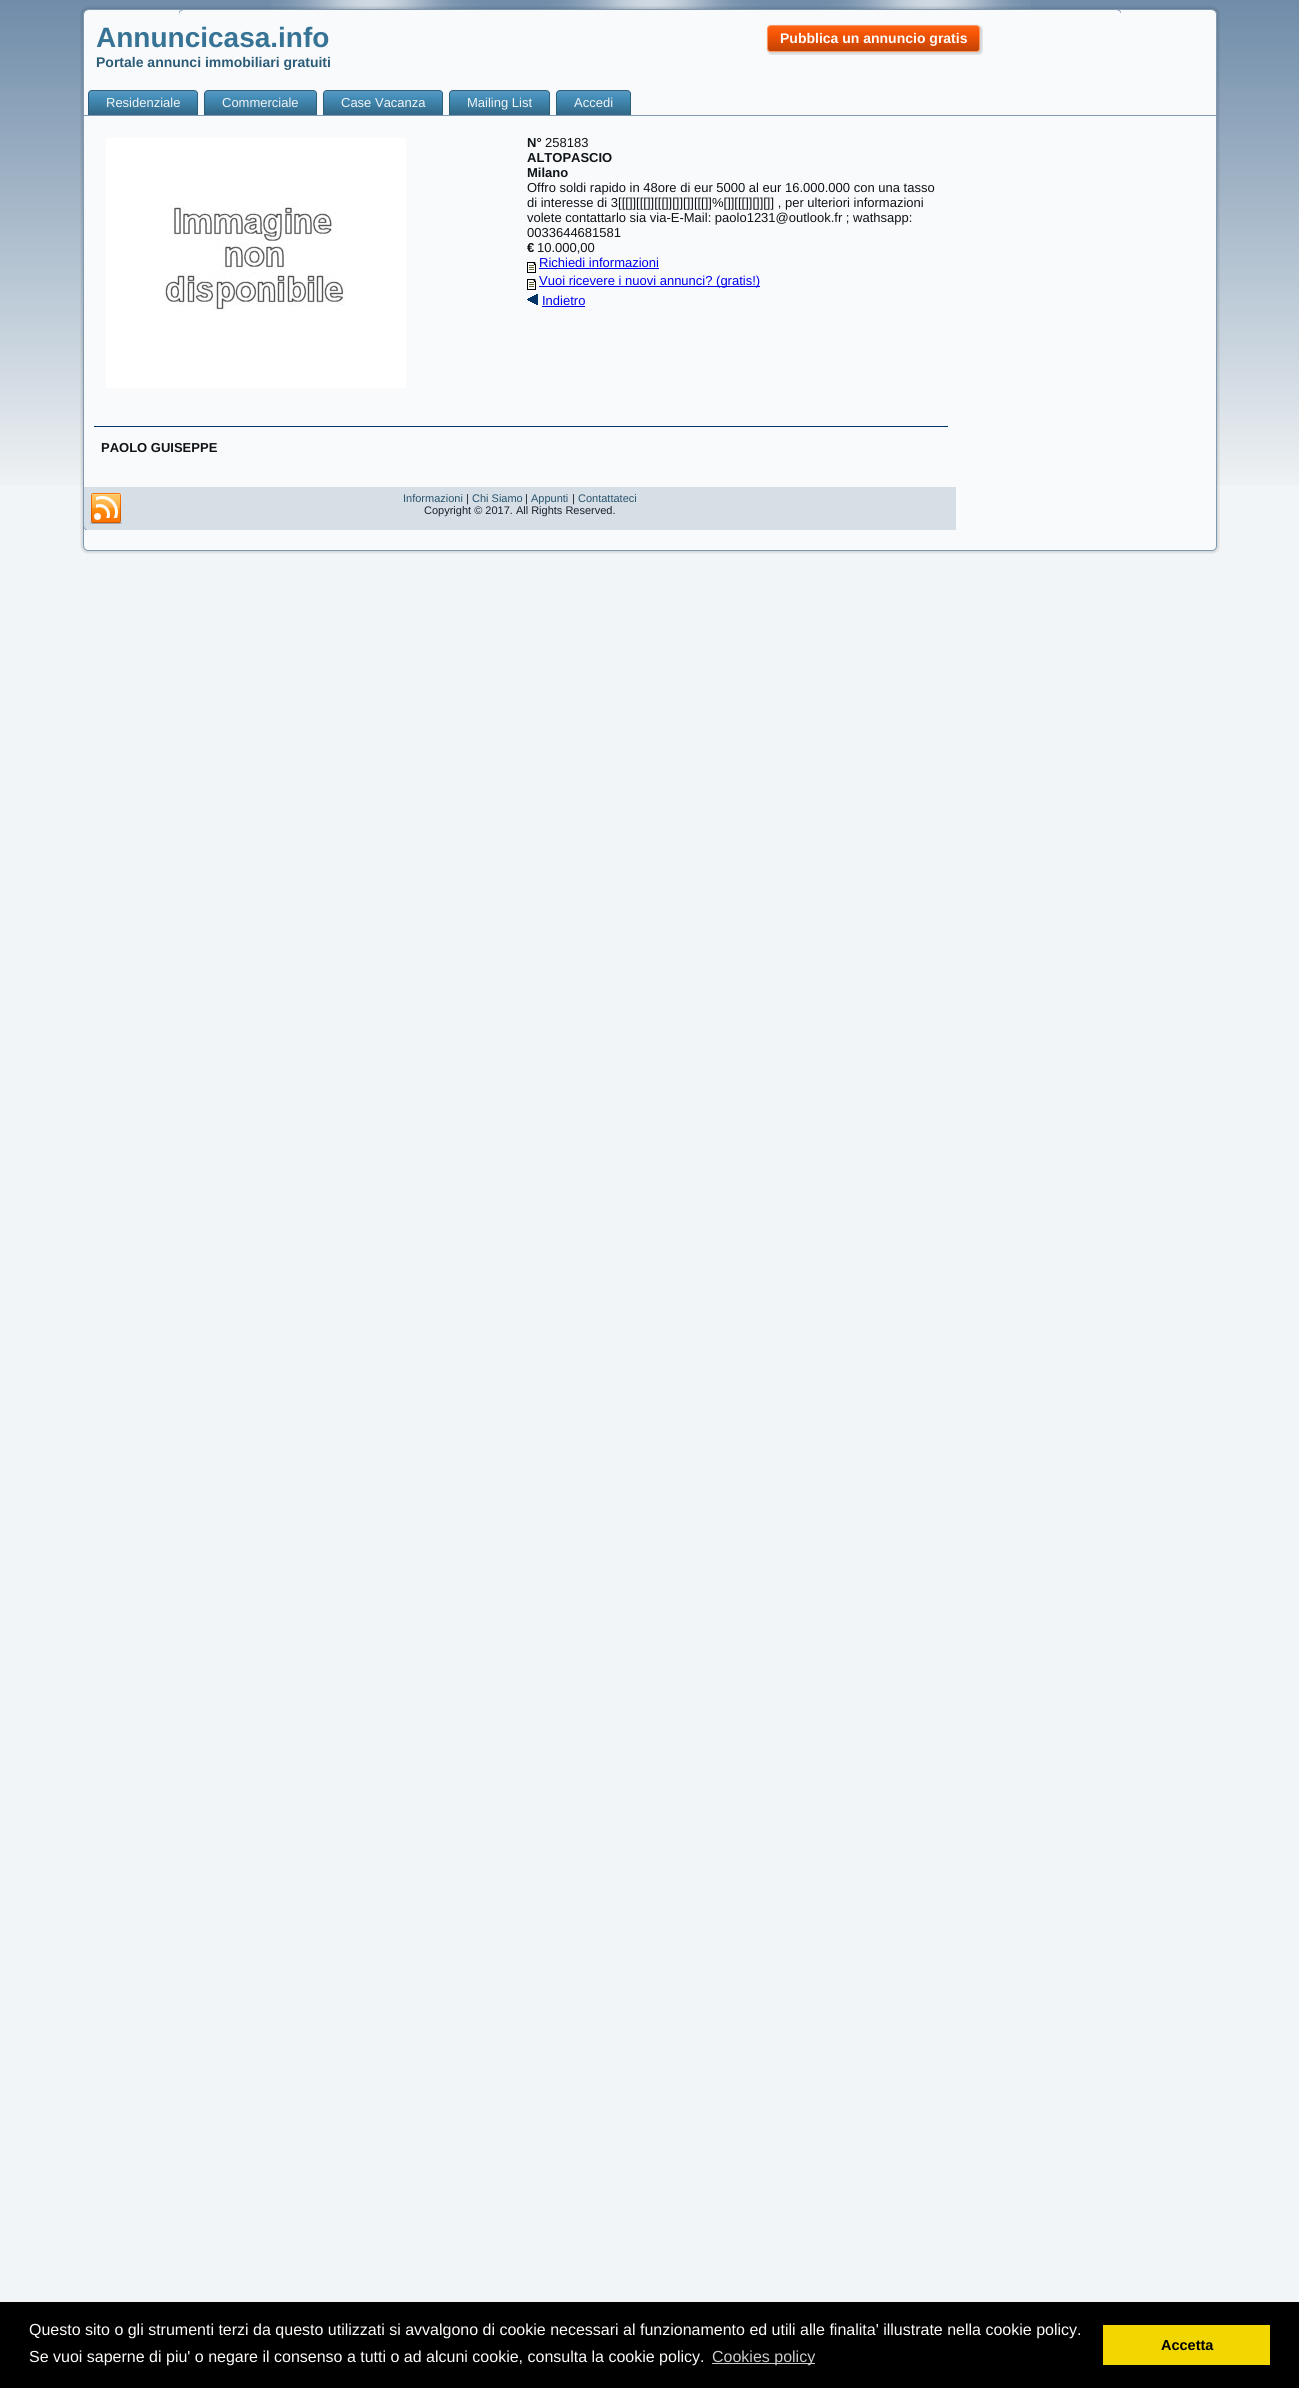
import math
import cairo

surface = cairo.ImageSurface(cairo.FORMAT_RGB24, 1299, 2388)
ctx = cairo.Context(surface)
options = cairo.FontOptions()
options.set_hint_metrics(cairo.HINT_METRICS_OFF)
options.set_hint_style(cairo.HINT_STYLE_NONE)
ctx.set_font_options(options)
ctx.set_miter_limit(4)


def set_color(code):
    ctx.set_source_rgb(*(v / 255 for v in bytes.fromhex(code[-6:])))


def draw_text(x, y, s, family, size, color, bold=False, italic=False):
    ctx.select_font_face(family, cairo.FONT_SLANT_ITALIC if italic else cairo.FONT_SLANT_NORMAL, cairo.FONT_WEIGHT_BOLD if bold else cairo.FONT_WEIGHT_NORMAL)
    ctx.set_font_size(size)
    set_color(color)
    ctx.move_to(x, y)
    ctx.show_text(s)


def fill_rect(x, y, w, h, color):
    set_color(color)
    ctx.rectangle(x, y, w, h)
    ctx.fill()


def draw_image(path, x, y, w, h):
    ctx.save()
    ctx.set_source_surface(cairo.ImageSurface.create_from_png(path), x, y)
    ctx.rectangle(x, y, w, h)
    ctx.fill()
    ctx.restore()


set_color("#f2f5f7")
ctx.paint()
draw_image("assets/img1.png", 0, 0, 1299, 485)
draw_image("assets/img2.png", 271, 0, 760, 9)
draw_image("assets/img3.png", 80, 6, 18, 18)
draw_image("assets/img4.png", 98, 6, 1104, 18)
draw_image("assets/img5.png", 1202, 6, 18, 18)
draw_image("assets/img6.png", 80, 24, 18, 512)
fill_rect(98, 24, 1104, 512, "#f9fafb")
draw_image("assets/img7.png", 1202, 24, 18, 512)
draw_image("assets/img8.png", 179, 10, 942, 5)
draw_text(96, 47, "Annuncicasa.info", "Liberation Sans", 28, "#377395", bold=True)
draw_text(96, 67, "Portale annunci immobiliari gratuiti", "Liberation Sans", 14, "#2c5c77", bold=True)
draw_image("assets/img9.png", 766, 24, 207, 31)
draw_image("assets/img10.png", 973, 24, 10, 31)
draw_text(780, 43, "Pubblica un annuncio gratis", "Liberation Sans", 14, "#fffcfa", bold=True)
draw_image("assets/img11.png", 88, 90, 106, 25)
draw_image("assets/img12.png", 194, 90, 4, 25)
draw_text(106, 107, "Residenziale", "Liberation Sans", 13, "#f2f5f7")
draw_image("assets/img13.png", 204, 90, 109, 25)
draw_image("assets/img12.png", 313, 90, 4, 25)
draw_text(222, 107, "Commerciale", "Liberation Sans", 13, "#f2f5f7")
draw_image("assets/img14.png", 323, 90, 116, 25)
draw_image("assets/img12.png", 439, 90, 4, 25)
draw_text(341, 107, "Case Vacanza", "Liberation Sans", 13, "#f2f5f7")
draw_image("assets/img15.png", 449, 90, 97, 25)
draw_image("assets/img12.png", 546, 90, 4, 25)
draw_text(467, 107, "Mailing List", "Liberation Sans", 13, "#f2f5f7")
draw_image("assets/img16.png", 556, 90, 71, 25)
draw_image("assets/img12.png", 627, 90, 4, 25)
draw_text(574, 107, "Accedi", "Liberation Sans", 13, "#f2f5f7")
fill_rect(84, 115, 1132, 1, "#8099b3")
draw_image("assets/img17.png", 106, 138, 300, 250)
draw_text(527, 147, "N°", "Liberation Sans", 13, "#0f1419", bold=True)
draw_text(545, 147, "258183", "Liberation Sans", 13, "#0f1419")
draw_text(527, 162, "ALTOPASCIO", "Liberation Sans", 13, "#0f1419", bold=True)
draw_text(527, 177, "Milano", "Liberation Sans", 13, "#0f1419", bold=True)
draw_text(527, 192, "Offro soldi rapido in 48ore di eur 5000 al eur 16.000.000 con una tasso", "Liberation Sans", 13, "#0f1419")
draw_text(527, 207, "di interesse di 3[[[]][[[]][[[]][]][]][[[]]%[]][[[]][]][]] , per ulteriori informazioni", "Liberation Sans", 13, "#0f1419")
draw_text(527, 222, "volete contattarlo sia via-E-Mail: paolo1231@outlook.fr ; wathsapp:", "Liberation Sans", 13, "#0f1419")
draw_text(527, 237, "0033644681581", "Liberation Sans", 13, "#0f1419")
draw_text(527, 252, "€", "Liberation Sans", 13, "#0f1419", bold=True)
draw_text(537, 252, "10.000,00", "Liberation Sans", 13, "#0f1419")
draw_image("assets/img18.png", 527, 262, 9, 11)
draw_text(539, 267, "Richiedi informazioni", "Liberation Sans", 13, "#0000ee")
fill_rect(539, 268, 120, 1, "#0000ee")
draw_image("assets/img18.png", 527, 279, 9, 11)
fill_rect(539, 286, 221, 1, "#0000ee")
draw_text(539, 285, "Vuoi ricevere i nuovi annunci? (gratis!)", "Liberation Sans", 13, "#0000ee")
draw_image("assets/img19.png", 527, 294, 11, 11)
draw_text(542, 305, "Indietro", "Liberation Sans", 13, "#0000ee")
fill_rect(542, 306, 43, 1, "#0000ee")
fill_rect(94, 426, 854, 1, "#003366")
draw_text(101, 452, "PAOLO GUISEPPE", "Liberation Sans", 13, "#0f1419", bold=True)
fill_rect(84, 487, 872, 38, "#d6dee6")
draw_image("assets/img20.png", 90, 493, 32, 31)
draw_text(403, 502, "Informazioni", "Liberation Sans", 11, "#28536c")
draw_text(466, 502, "|", "Liberation Sans", 11, "#192129")
draw_text(472, 502, "Chi Siamo", "Liberation Sans", 11, "#28536c")
draw_text(525, 502, "|", "Liberation Sans", 11, "#192129")
draw_text(531, 502, "Appunti", "Liberation Sans", 11, "#28536c")
draw_text(572, 502, "|", "Liberation Sans", 11, "#192129")
draw_text(578, 502, "Contattateci", "Liberation Sans", 11, "#28536c")
draw_text(424, 514, "Copyright © 2017. All Rights Reserved.", "Liberation Sans", 11, "#192129")
draw_image("assets/img21.png", 84, 525, 5, 5)
fill_rect(89, 525, 867, 5, "#d6dee6")
draw_image("assets/img22.png", 80, 536, 18, 18)
draw_image("assets/img23.png", 98, 536, 1104, 18)
draw_image("assets/img24.png", 1202, 536, 18, 18)
fill_rect(0, 2302, 1299, 86, "#000000")
draw_text(29, 2335, "Questo sito o gli strumenti terzi da questo utilizzati si avvalgono di cookie necessari al funzionamento ed utili alle finalita' illustrate nella cookie policy.", "Liberation Sans", 16, "#fffcfa")
draw_text(29, 2362, "Se vuoi saperne di piu' o negare il consenso a tutti o ad alcuni cookie, consulta la cookie policy.", "Liberation Sans", 16, "#fffcfa")
fill_rect(712, 2363, 103, 1, "#cccccc")
draw_text(712, 2362, "Cookies policy", "Liberation Sans", 16, "#cccccc")
fill_rect(1103, 2325, 167, 40, "#f1d600")
draw_text(1161, 2350, "Accetta", "Liberation Sans", 14.5, "#000000", bold=True)
surface.write_to_png("output.png")
